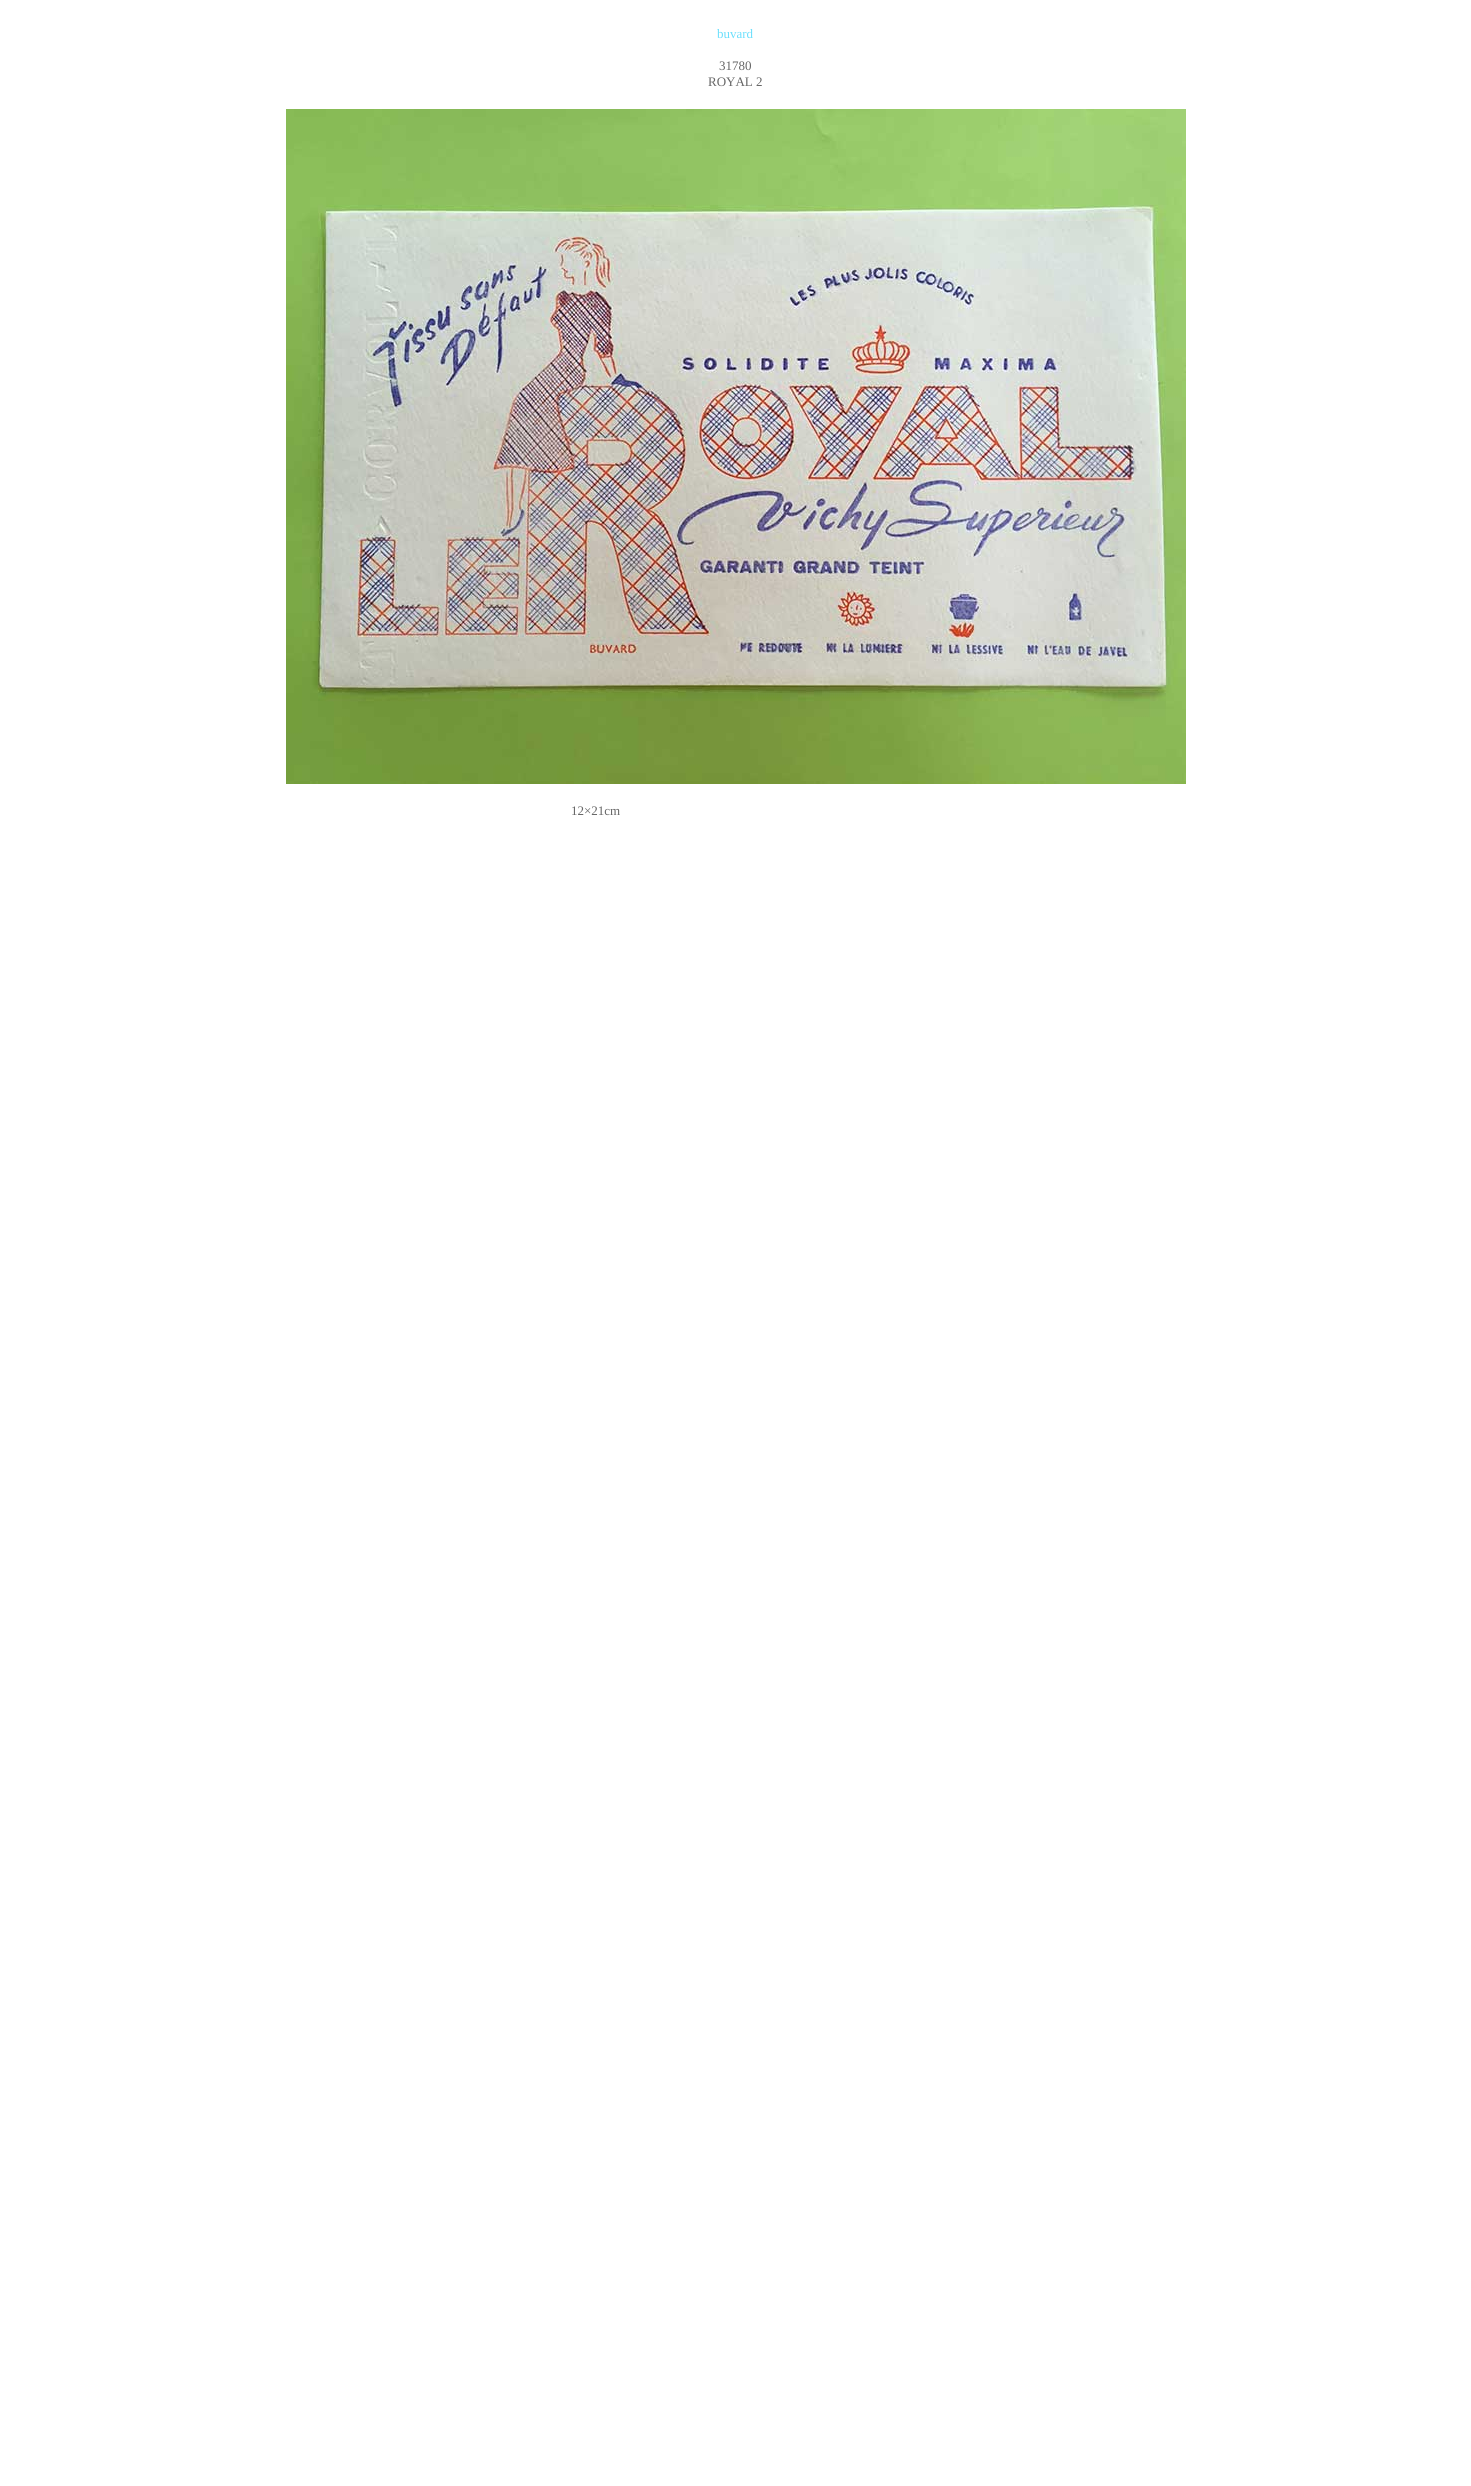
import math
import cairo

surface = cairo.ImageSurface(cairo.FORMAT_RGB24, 1471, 2486)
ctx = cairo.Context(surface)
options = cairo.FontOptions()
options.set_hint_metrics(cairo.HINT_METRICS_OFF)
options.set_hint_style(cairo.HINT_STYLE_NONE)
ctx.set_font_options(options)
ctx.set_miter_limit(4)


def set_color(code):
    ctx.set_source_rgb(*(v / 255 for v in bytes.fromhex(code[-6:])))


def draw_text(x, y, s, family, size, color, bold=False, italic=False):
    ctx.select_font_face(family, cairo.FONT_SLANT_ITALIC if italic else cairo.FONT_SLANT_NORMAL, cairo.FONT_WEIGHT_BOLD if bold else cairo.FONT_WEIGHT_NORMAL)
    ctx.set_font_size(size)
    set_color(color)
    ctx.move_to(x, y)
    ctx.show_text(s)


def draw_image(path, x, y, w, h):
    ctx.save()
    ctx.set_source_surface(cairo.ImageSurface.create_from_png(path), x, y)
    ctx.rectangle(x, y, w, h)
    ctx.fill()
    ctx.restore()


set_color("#ffffff")
ctx.paint()
draw_text(717, 38, "buvard", "Liberation Serif", 13, "#6bdffc")
draw_text(719, 70, "31780", "Liberation Serif", 13, "#666666")
draw_text(708, 86, "ROYAL 2", "Liberation Serif", 13, "#666666")
draw_image("assets/img1.png", 286, 109, 900, 675)
draw_text(571, 815, "12×21cm", "Liberation Serif", 13, "#666666")
surface.write_to_png("output.png")
